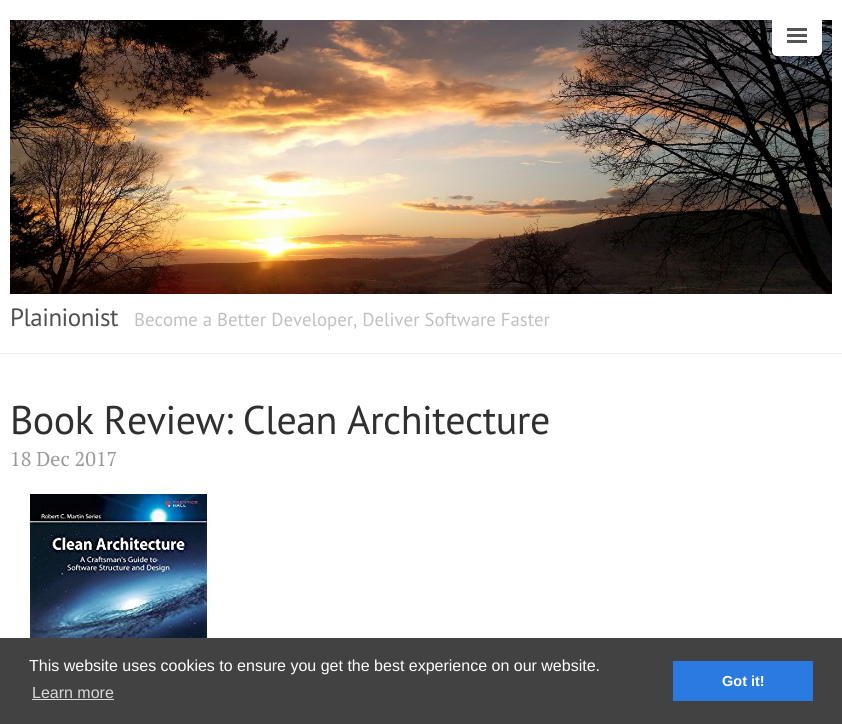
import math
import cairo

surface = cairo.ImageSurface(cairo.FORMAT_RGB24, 842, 724)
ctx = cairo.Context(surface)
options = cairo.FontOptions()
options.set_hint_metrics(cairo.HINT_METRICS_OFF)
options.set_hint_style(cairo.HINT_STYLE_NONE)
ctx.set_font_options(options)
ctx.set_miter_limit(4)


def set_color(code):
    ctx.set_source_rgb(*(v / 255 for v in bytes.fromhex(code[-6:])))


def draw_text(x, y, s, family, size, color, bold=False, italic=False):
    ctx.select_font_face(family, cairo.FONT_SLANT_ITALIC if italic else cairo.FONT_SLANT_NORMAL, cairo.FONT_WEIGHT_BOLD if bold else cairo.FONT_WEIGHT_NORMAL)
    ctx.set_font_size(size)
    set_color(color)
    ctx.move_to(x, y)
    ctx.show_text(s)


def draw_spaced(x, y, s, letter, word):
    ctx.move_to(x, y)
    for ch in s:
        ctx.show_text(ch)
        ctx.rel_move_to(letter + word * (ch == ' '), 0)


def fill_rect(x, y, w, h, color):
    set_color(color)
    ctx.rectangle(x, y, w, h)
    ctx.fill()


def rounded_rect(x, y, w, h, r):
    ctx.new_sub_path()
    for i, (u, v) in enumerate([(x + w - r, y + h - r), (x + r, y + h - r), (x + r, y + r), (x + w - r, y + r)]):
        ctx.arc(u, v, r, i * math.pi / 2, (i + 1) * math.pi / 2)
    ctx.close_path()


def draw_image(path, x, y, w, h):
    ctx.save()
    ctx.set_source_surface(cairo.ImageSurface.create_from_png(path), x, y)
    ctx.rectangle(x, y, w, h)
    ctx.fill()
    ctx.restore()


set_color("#ffffff")
ctx.paint()
draw_image("assets/img2.png", 10, 20, 822, 274)
set_color("#ffffff")
rounded_rect(772, 16, 50, 40, 5)
ctx.fill()
draw_image("assets/img1.png", 787, 28, 20, 15)
fill_rect(0, 353, 842, 1, "#eeeeee")
ctx.select_font_face("PT Sans")
ctx.set_font_size(25)
set_color("#505050")
draw_spaced(10, 326, "Plainionist", -0.5, 0)
draw_text(134, 326, "Become a Better Developer, Deliver Software Faster", "PT Sans", 18.75, "#c0c0c0")
ctx.set_font_size(40)
set_color("#303030")
draw_spaced(10, 434, "Book Review: Clean Architecture", -0.5, 0)
draw_text(10, 466, "18 Dec 2017", "PT Serif", 20, "#9a9a9a")
draw_image("assets/img3.png", 26, 494, 192, 144)
fill_rect(0, 638, 842, 86, "#424242")
draw_text(29, 671, "This website uses cookies to ensure you get the best experience on our website.", "Liberation Sans", 16, "#ffffff")
draw_text(32, 698, "Learn more", "Liberation Sans", 16, "#d9d9d9")
fill_rect(32, 699, 82, 1, "#d9d9d9")
fill_rect(673, 661, 140, 40, "#2a7ae2")
draw_text(722, 686, "Got it!", "Liberation Sans", 14.5, "#ffffff", bold=True)
surface.write_to_png("output.png")
